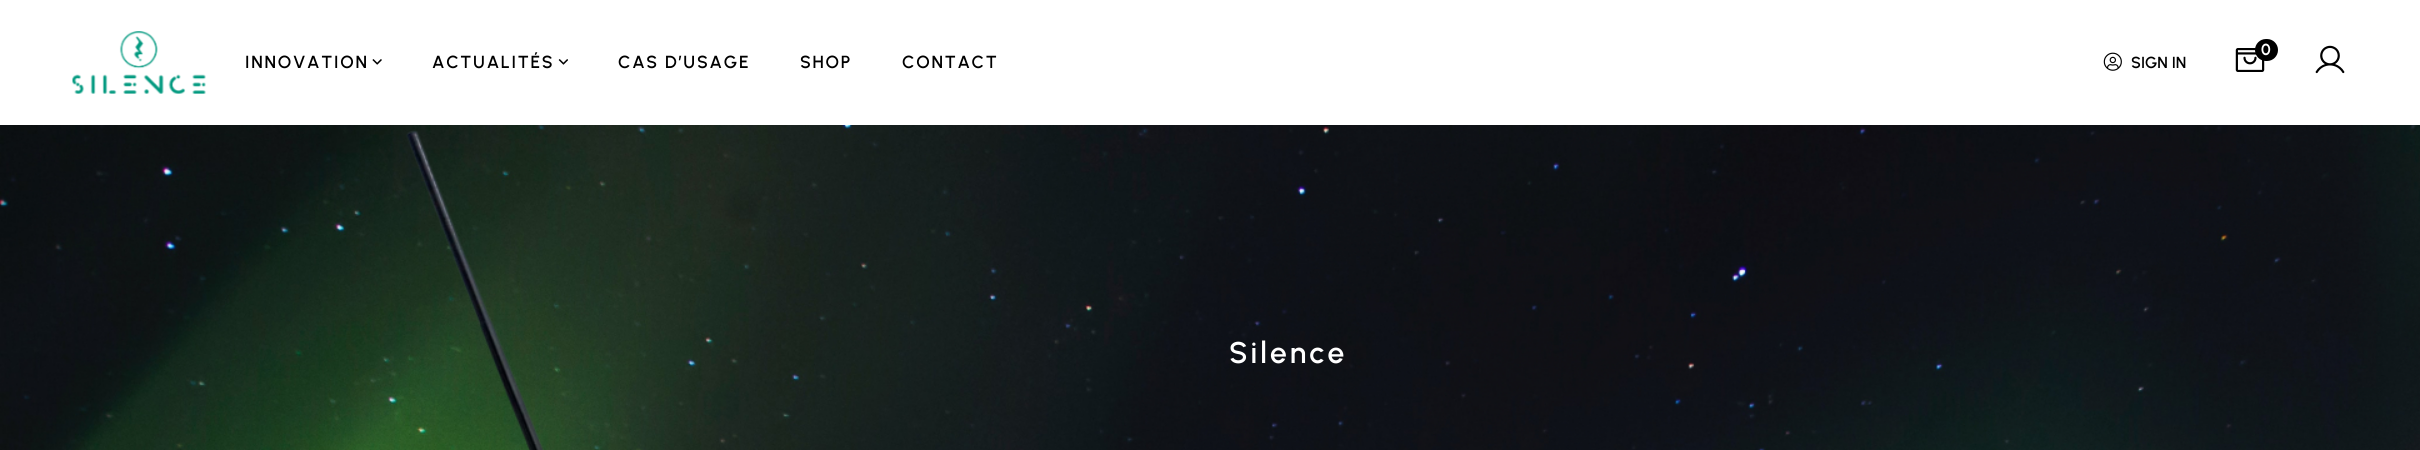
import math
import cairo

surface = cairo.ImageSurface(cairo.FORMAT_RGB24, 2420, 450)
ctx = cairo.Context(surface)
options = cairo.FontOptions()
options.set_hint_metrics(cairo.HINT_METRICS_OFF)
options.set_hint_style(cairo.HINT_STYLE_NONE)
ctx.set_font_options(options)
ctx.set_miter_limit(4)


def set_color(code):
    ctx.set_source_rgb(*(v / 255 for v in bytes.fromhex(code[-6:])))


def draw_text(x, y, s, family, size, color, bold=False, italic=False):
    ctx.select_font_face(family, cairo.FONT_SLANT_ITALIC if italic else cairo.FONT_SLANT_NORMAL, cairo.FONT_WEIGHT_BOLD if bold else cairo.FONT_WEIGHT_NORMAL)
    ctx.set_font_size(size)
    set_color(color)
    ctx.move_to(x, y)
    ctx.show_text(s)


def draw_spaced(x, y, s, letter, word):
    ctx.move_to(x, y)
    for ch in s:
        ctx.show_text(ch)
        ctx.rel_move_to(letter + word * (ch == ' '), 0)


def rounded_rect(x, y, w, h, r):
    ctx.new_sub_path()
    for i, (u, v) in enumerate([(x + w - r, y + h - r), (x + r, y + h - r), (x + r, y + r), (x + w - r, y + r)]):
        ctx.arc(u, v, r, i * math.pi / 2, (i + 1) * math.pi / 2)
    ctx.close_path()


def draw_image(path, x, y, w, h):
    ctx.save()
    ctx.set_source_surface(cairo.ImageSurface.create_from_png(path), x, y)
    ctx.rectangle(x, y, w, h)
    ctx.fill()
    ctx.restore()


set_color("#ffffff")
ctx.paint()
draw_image("assets/img1.png", 72, 31, 134, 63)
ctx.select_font_face("Urbanist SemiBold")
ctx.set_font_size(17.5)
set_color("#000000")
draw_spaced(245, 68, "INNOVATION", 1.75, 0)
draw_image("assets/img2.png", 372, 59, 10, 6)
draw_spaced(432, 68, "ACTUALITÉS", 1.75, 0)
draw_image("assets/img3.png", 558, 59, 10, 6)
draw_spaced(618, 68, "CAS D’USAGE", 1.75, 0)
draw_spaced(800, 68, "SHOP", 1.75, 0)
draw_spaced(902, 68, "CONTACT", 1.75, 0)
draw_image("assets/img4.png", 2103, 52, 19, 19)
draw_text(2131, 68, "SIGN IN", "Urbanist SemiBold", 16, "#000000")
draw_image("assets/img5.png", 2235, 48, 30, 24)
rounded_rect(2255, 39, 23, 22, 11)
ctx.fill()
draw_text(2261, 55, "0", "Urbanist", 16, "#ffffff", bold=True)
draw_image("assets/img6.png", 2315, 45, 30, 29)
draw_image("assets/img7.png", 0, 125, 2420, 325)
draw_image("assets/img8.png", 406, 130, 138, 320)
ctx.select_font_face("Urbanist SemiBold")
ctx.set_font_size(30)
draw_spaced(1229, 363, "Silence", 3, 0)
surface.write_to_png("output.png")
